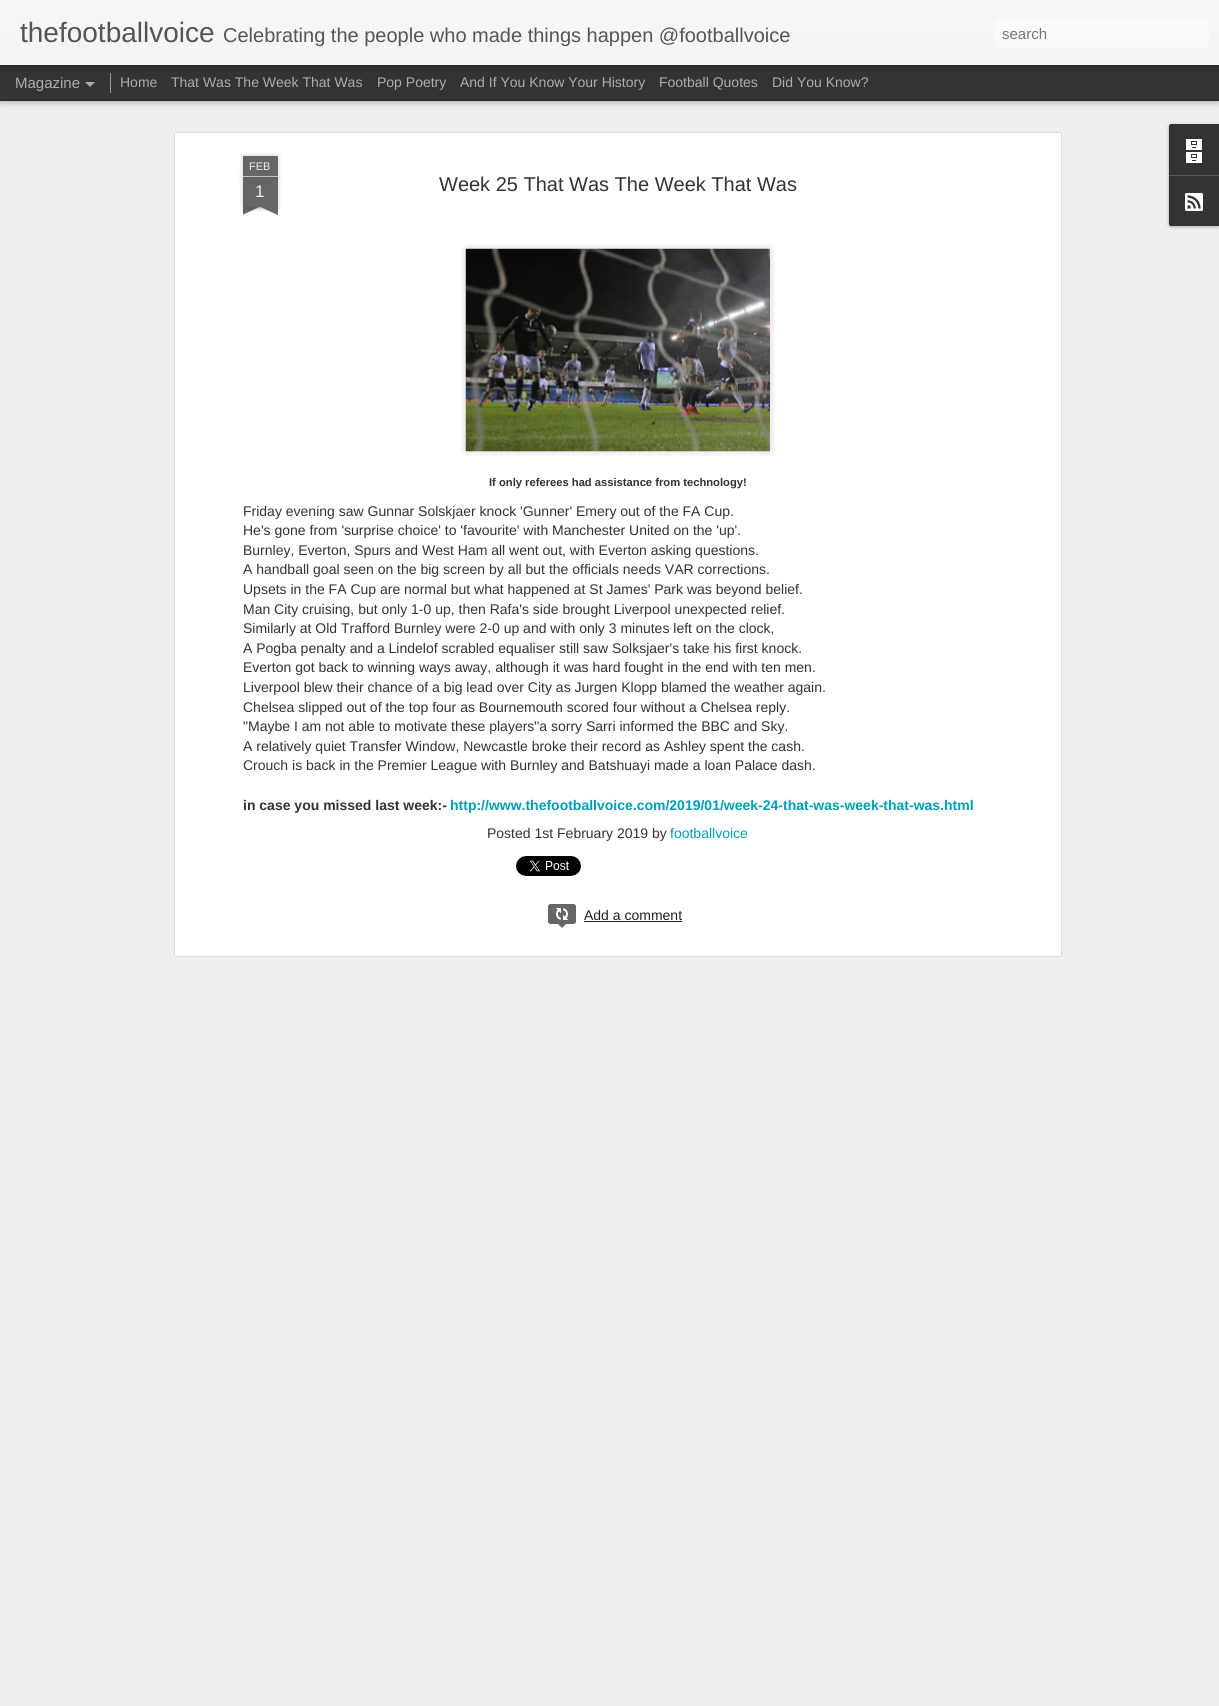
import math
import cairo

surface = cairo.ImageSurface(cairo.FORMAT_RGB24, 1219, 1706)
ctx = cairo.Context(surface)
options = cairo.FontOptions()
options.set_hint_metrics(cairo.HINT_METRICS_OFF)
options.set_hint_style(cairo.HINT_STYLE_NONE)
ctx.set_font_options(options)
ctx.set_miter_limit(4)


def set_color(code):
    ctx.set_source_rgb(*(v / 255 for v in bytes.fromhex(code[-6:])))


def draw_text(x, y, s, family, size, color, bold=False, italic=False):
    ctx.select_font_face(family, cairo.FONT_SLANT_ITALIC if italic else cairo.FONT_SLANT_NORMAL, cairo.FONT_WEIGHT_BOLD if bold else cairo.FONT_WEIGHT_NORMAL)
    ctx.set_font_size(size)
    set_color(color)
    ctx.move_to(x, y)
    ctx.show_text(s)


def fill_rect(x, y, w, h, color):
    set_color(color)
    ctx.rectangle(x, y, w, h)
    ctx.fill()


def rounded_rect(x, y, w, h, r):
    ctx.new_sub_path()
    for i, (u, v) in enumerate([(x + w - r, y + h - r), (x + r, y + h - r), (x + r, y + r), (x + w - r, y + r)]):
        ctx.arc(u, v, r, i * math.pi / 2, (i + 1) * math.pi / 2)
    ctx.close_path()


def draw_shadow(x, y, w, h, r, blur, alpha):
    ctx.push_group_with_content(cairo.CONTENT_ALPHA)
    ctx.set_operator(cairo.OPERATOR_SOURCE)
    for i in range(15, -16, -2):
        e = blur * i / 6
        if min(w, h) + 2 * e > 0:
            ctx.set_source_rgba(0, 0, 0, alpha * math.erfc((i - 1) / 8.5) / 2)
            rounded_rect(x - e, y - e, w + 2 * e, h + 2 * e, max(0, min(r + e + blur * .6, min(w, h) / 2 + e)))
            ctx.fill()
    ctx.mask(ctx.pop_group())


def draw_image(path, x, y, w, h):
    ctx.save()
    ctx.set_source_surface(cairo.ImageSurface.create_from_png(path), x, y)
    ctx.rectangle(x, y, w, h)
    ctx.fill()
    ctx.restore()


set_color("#333333")
ctx.paint()
fill_rect(0, 101, 1219, 1605, "#eeeeee")
set_color("#000000")
draw_shadow(0, 65, 1219, 35, 0, 4, 0.5)
fill_rect(0, 65, 1219, 35, "#333333")
fill_rect(110, 73, 1, 20, "#999999")
set_color("#000000")
draw_shadow(0, 0, 1219, 65, 0, 2.5, 0.3)
gradient = cairo.LinearGradient(0, 0, 0, 65)
gradient.add_color_stop_rgba(0, 0.969, 0.969, 0.969, 1)
gradient.add_color_stop_rgba(1, 0.957, 0.957, 0.957, 1)
ctx.set_source(gradient)
ctx.rectangle(0, 0, 1219, 65)
ctx.fill()
draw_text(20, 42, "thefootballvoice", "Liberation Sans", 28, "#555555")
draw_text(223, 42, "Celebrating the people who made things happen @footballvoice", "Liberation Sans", 20, "#555555")
set_color("#fafafa")
rounded_rect(995, 18, 214, 30, 3)
ctx.fill()
draw_text(1002, 39, "search", "Liberation Sans", 15, "#757575")
draw_text(15, 88, "Magazine", "Liberation Sans", 15, "#adadad")
ctx.new_path()
ctx.move_to(85, 82)
ctx.line_to(95, 82)
ctx.line_to(90, 87)
ctx.close_path()
ctx.fill()
draw_text(120, 87, "Home", "Liberation Sans", 14, "#adadad")
draw_text(171, 87, "That Was The Week That Was", "Liberation Sans", 14, "#adadad")
draw_text(377, 87, "Pop Poetry", "Liberation Sans", 14, "#adadad")
draw_text(460, 87, "And If You Know Your History", "Liberation Sans", 14, "#adadad")
draw_text(659, 87, "Football Quotes", "Liberation Sans", 14, "#adadad")
draw_text(772, 87, "Did You Know?", "Liberation Sans", 14, "#adadad")
fill_rect(173, 131, 890, 827, "#ffffff")
draw_image("assets/img1.png", 173, 131, 890, 827)
set_color("#000000")
draw_shadow(243, 177, 35, 30, 0, 2.5, 0.2)
fill_rect(243, 177, 35, 30, "#666666")
set_color("#000000")
draw_shadow(243, 156, 35, 21, 1, 2.5, 0.2)
set_color("#666666")
ctx.new_path()
ctx.move_to(244, 156)
ctx.line_to(277, 156)
ctx.curve_to(277.5, 156, 278, 156.5, 278, 157)
ctx.line_to(278, 177)
ctx.line_to(243, 177)
ctx.line_to(243, 157)
ctx.curve_to(243, 156.5, 243.5, 156, 244, 156)
ctx.close_path()
ctx.fill()
fill_rect(243, 176, 35, 1, "#c2c2c2")
draw_text(249, 170, "FEB", "Liberation Sans", 11, "#eeeeee")
draw_text(255, 197, "1", "Liberation Sans", 17, "#eeeeee")
ctx.save()
ctx.rectangle(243, 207, 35, 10)
ctx.clip()
set_color("#000000")
draw_shadow(234, 197, 50, 10, 0, 2.5, 0.2)
ctx.restore()
ctx.save()
ctx.rectangle(243, 207, 35, 10)
ctx.clip()
set_color("#666666")
ctx.new_path()
ctx.move_to(234, 208)
ctx.line_to(279, 187)
ctx.line_to(283, 196)
ctx.line_to(238, 217)
ctx.close_path()
ctx.fill()
ctx.restore()
ctx.save()
ctx.rectangle(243, 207, 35, 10)
ctx.clip()
set_color("#000000")
draw_shadow(237, 197, 50, 10, 0, 2.5, 0.2)
ctx.restore()
ctx.save()
ctx.rectangle(243, 207, 35, 10)
ctx.clip()
set_color("#666666")
ctx.new_path()
ctx.move_to(241, 187)
ctx.line_to(286, 208)
ctx.line_to(282, 217)
ctx.line_to(237, 196)
ctx.close_path()
ctx.fill()
ctx.restore()
draw_text(439, 191, "Week 25 That Was The Week That Was", "Liberation Sans", 20, "#333333")
draw_image("assets/img2.png", 461, 244, 314, 212)
draw_image("assets/img3.png", 465, 248, 305, 204)
draw_text(489, 486, "If only referees had assistance from technology!", "Liberation Sans", 11.2, "#333333", bold=True)
draw_text(243, 516, "Friday evening saw Gunnar Solskjaer knock 'Gunner' Emery out of the FA Cup.", "Liberation Sans", 14, "#333333")
draw_text(243, 535, "He's gone from 'surprise choice' to 'favourite' with Manchester United on the 'up'.", "Liberation Sans", 14, "#333333")
draw_text(243, 555, "Burnley, Everton, Spurs and West Ham all went out, with Everton asking questions.", "Liberation Sans", 14, "#333333")
draw_text(243, 574, "A handball goal seen on the big screen by all but the officials needs VAR corrections.", "Liberation Sans", 14, "#333333")
draw_text(243, 594, "Upsets in the FA Cup are normal but what happened at St James' Park was beyond belief.", "Liberation Sans", 14, "#333333")
draw_text(243, 614, "Man City cruising, but only 1-0 up, then Rafa's side brought Liverpool unexpected relief.", "Liberation Sans", 14, "#333333")
draw_text(243, 633, "Similarly at Old Trafford Burnley were 2-0 up and with only 3 minutes left on the clock,", "Liberation Sans", 14, "#333333")
draw_text(243, 653, "A Pogba penalty and a Lindelof scrabled equaliser still saw Solksjaer's take his first knock.", "Liberation Sans", 14, "#333333")
draw_text(243, 672, "Everton got back to winning ways away, although it was hard fought in the end with ten men.", "Liberation Sans", 14, "#333333")
draw_text(243, 692, "Liverpool blew their chance of a big lead over City as Jurgen Klopp blamed the weather again.", "Liberation Sans", 14, "#333333")
draw_text(243, 712, "Chelsea slipped out of the top four as Bournemouth scored four without a Chelsea reply.", "Liberation Sans", 14, "#333333")
draw_text(243, 731, "\"Maybe I am not able to motivate these players\"a sorry Sarri informed the BBC and Sky.", "Liberation Sans", 14, "#333333")
draw_text(243, 751, "A relatively quiet Transfer Window, Newcastle broke their record as Ashley spent the cash.", "Liberation Sans", 14, "#333333")
draw_text(243, 770, "Crouch is back in the Premier League with Burnley and Batshuayi made a loan Palace dash.", "Liberation Sans", 14, "#333333")
draw_text(243, 810, "in case you missed last week:-", "Liberation Sans", 14, "#333333", bold=True)
draw_text(450, 810, "http://www.thefootballvoice.com/2019/01/week-24-that-was-week-that-was.html", "Liberation Sans", 14, "#009eb8", bold=True)
draw_text(487, 838, "Posted 1st February 2019 by", "Liberation Sans", 14, "#333333")
draw_text(670, 838, "footballvoice", "Liberation Sans", 14, "#009eb8")
draw_image("assets/img4.png", 516, 856, 65, 20)
set_color("#666666")
rounded_rect(548, 904, 28, 20, 3)
ctx.fill()
draw_image("assets/img5.png", 556, 908, 12, 12)
rounded_rect(548.5, 904.5, 27, 19, 2.5)
ctx.set_line_width(1)
ctx.stroke()
ctx.new_path()
ctx.move_to(557, 923)
ctx.line_to(567, 923)
ctx.line_to(562, 928)
ctx.close_path()
ctx.fill()
draw_text(584, 920, "Add a comment", "Liberation Sans", 14, "#222222")
fill_rect(584, 921, 98, 1, "#222222")
set_color("#000000")
draw_shadow(1169, 125, 50, 102, 2, 1.5, 0.3)
set_color("#333333")
ctx.new_path()
ctx.move_to(1171, 124)
ctx.line_to(1219, 124)
ctx.line_to(1219, 175)
ctx.line_to(1169, 175)
ctx.line_to(1169, 126)
ctx.curve_to(1169, 125, 1170, 124, 1171, 124)
ctx.close_path()
ctx.fill()
draw_image("assets/img6.png", 1186, 139, 16, 24)
ctx.new_path()
ctx.move_to(1169, 175)
ctx.line_to(1219, 175)
ctx.line_to(1219, 226)
ctx.line_to(1171, 226)
ctx.curve_to(1170, 226, 1169, 225, 1169, 224)
ctx.close_path()
ctx.fill()
fill_rect(1169, 175, 50, 1, "#585858")
draw_image("assets/img7.png", 1185, 193, 18, 18)
surface.write_to_png("output.png")
